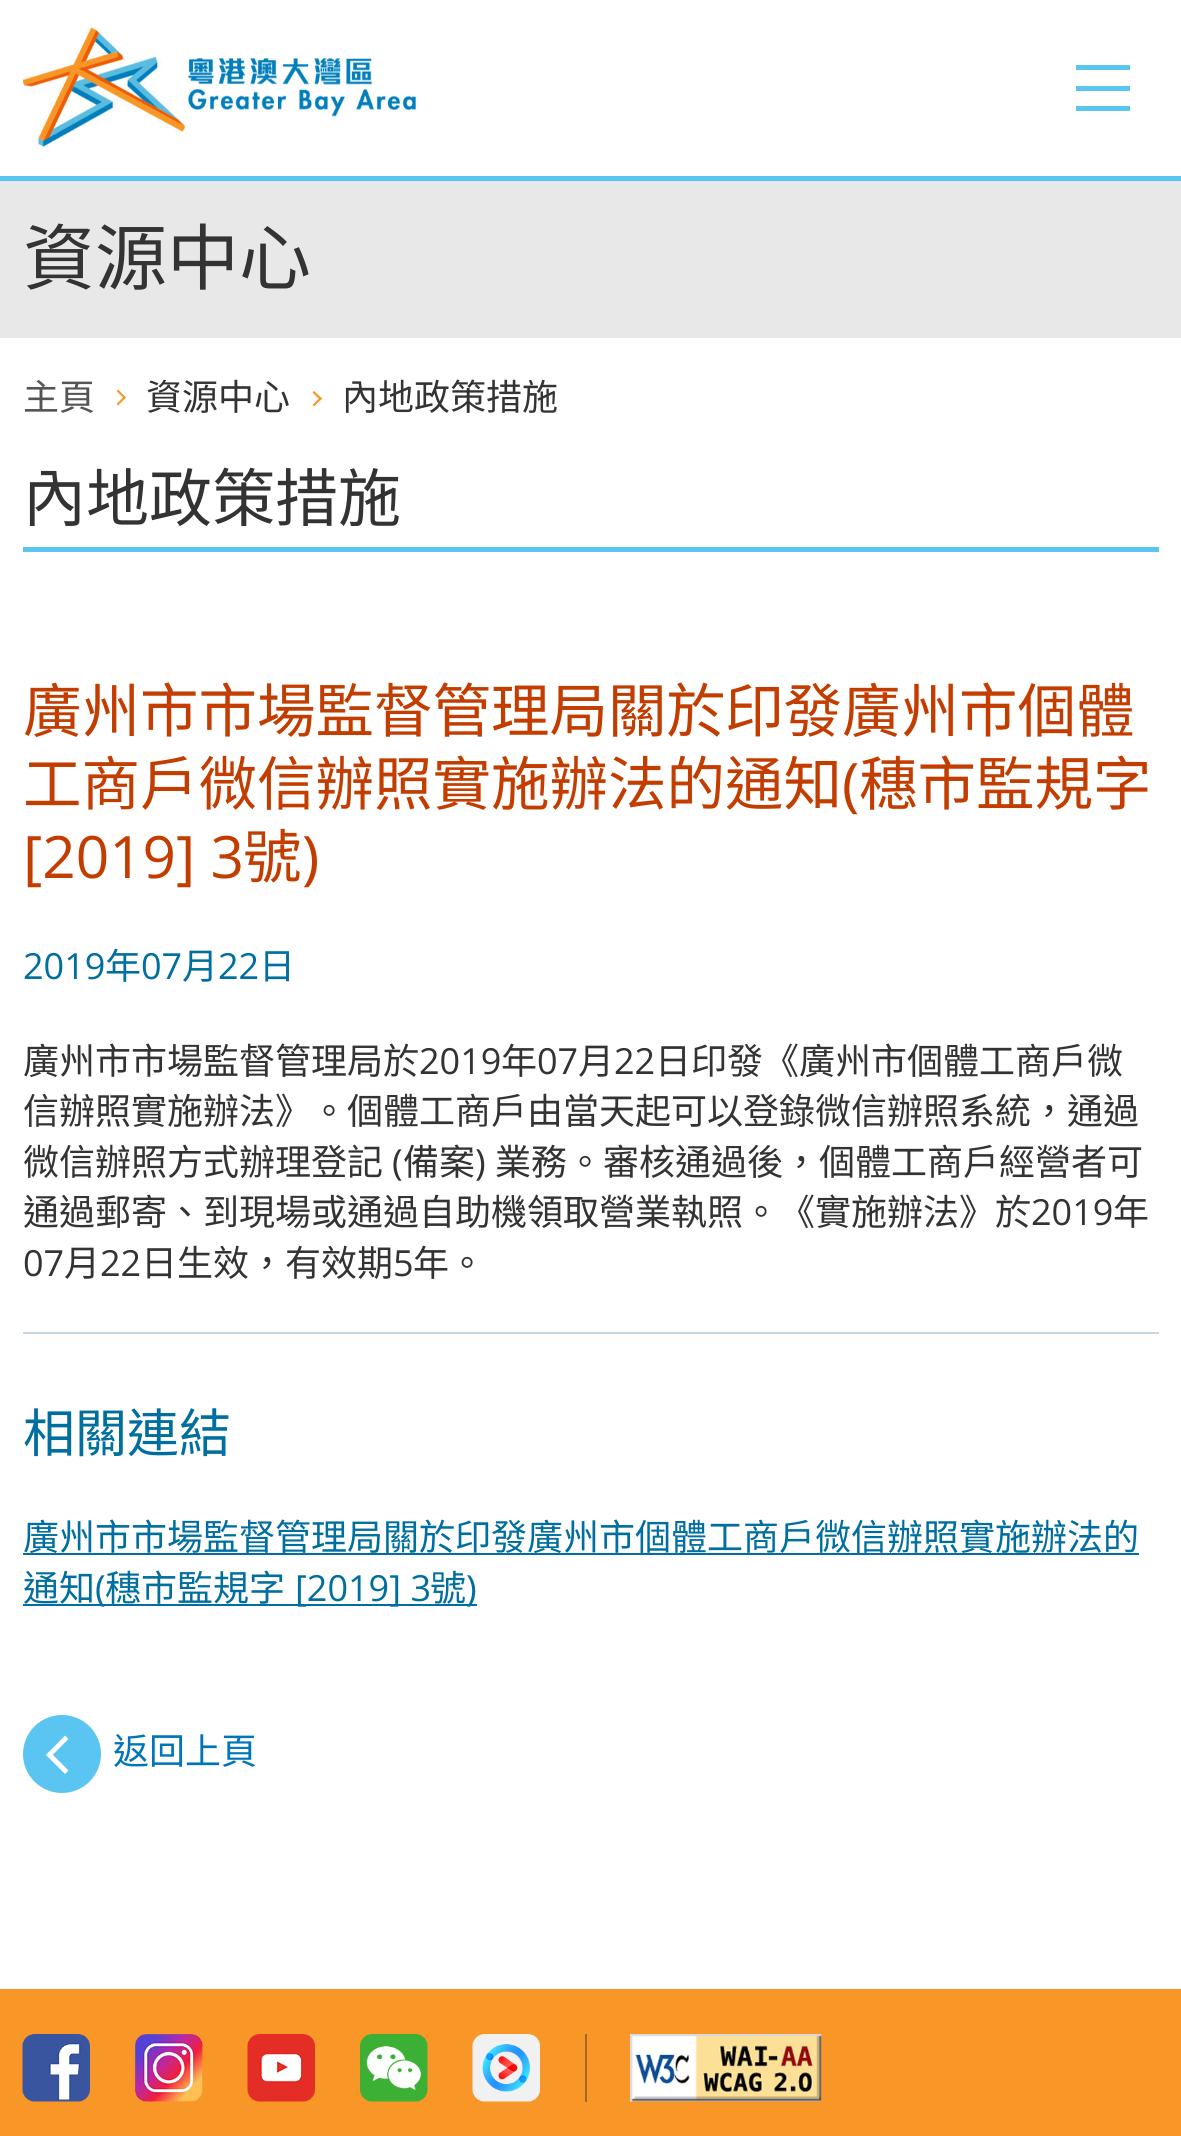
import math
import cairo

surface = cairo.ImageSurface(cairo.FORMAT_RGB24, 1181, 2136)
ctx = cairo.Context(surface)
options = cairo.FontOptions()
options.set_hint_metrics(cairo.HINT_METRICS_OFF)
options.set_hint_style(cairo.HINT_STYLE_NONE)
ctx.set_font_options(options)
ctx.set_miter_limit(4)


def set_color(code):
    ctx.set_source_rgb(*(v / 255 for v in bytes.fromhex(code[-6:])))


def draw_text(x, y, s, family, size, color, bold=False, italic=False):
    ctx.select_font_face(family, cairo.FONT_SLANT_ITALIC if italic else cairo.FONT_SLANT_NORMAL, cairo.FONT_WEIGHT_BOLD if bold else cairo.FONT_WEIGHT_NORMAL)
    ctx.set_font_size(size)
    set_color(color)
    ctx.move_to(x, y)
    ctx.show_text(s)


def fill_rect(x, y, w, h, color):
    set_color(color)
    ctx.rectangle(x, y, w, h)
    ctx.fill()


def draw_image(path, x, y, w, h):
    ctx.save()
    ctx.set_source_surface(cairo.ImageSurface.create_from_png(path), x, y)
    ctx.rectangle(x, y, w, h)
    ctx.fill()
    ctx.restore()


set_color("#ffffff")
ctx.paint()
fill_rect(0, 176, 1181, 5, "#5ac5f1")
draw_image("assets/img1.png", 23, 26, 393, 124)
fill_rect(1076, 65, 54, 5, "#5ac5f1")
fill_rect(1076, 86, 54, 5, "#5ac5f1")
fill_rect(1076, 106, 54, 5, "#5ac5f1")
fill_rect(0, 181, 1181, 157, "#e8e8e8")
draw_text(23, 284, "資源中心", "Noto Sans CJK HK", 72, "#333333")
draw_text(23, 410, "主頁", "Noto Sans CJK HK", 36, "#555555")
set_color("#f89727")
ctx.new_path()
ctx.move_to(118, 389.5)
ctx.line_to(126, 397.5)
ctx.line_to(124.5, 399)
ctx.line_to(116.5, 391)
ctx.close_path()
ctx.fill()
ctx.new_path()
ctx.move_to(124.5, 396)
ctx.line_to(126, 397.5)
ctx.line_to(118, 405.5)
ctx.line_to(116.5, 404)
ctx.close_path()
ctx.fill()
draw_text(146, 410, "資源中心", "Noto Sans CJK HK", 36, "#333333")
set_color("#f89727")
ctx.new_path()
ctx.move_to(314, 391)
ctx.line_to(322, 398.5)
ctx.line_to(320.5, 400.5)
ctx.line_to(312.5, 392.5)
ctx.close_path()
ctx.fill()
ctx.new_path()
ctx.move_to(320.5, 397)
ctx.line_to(322, 398.5)
ctx.line_to(314, 406.5)
ctx.line_to(312.5, 405)
ctx.close_path()
ctx.fill()
draw_text(342, 410, "內地政策措施", "Noto Sans CJK HK", 36, "#333333")
fill_rect(23, 547, 1136, 5, "#5ac5f1")
draw_text(23, 521, "內地政策措施", "Noto Sans CJK HK", 63, "#333333")
draw_text(23, 732, "廣州市市場監督管理局關於印發廣州市個體", "Noto Sans CJK HK", 58.5, "#c33d00")
draw_text(23, 805, "工商戶微信辦照實施辦法的通知", "Noto Sans CJK HK", 58.5, "#c33d00")
draw_text(842, 805, "(", "Open Sans", 58.5, "#c33d00")
draw_text(859, 805, "穗市監規字", "Noto Sans CJK HK", 58.5, "#c33d00")
draw_text(23, 878, "[2019] 3", "Open Sans", 58.5, "#c33d00")
draw_text(243, 878, "號", "Noto Sans CJK HK", 58.5, "#c33d00")
draw_text(302, 878, ")", "Open Sans", 58.5, "#c33d00")
draw_text(23, 979, "2019", "Open Sans", 36, "#006fa0")
draw_text(105, 979, "年", "Noto Sans CJK HK", 36, "#006fa0")
draw_text(141, 979, "07", "Open Sans", 36, "#006fa0")
draw_text(182, 979, "月", "Noto Sans CJK HK", 36, "#006fa0")
draw_text(218, 979, "22", "Open Sans", 36, "#006fa0")
draw_text(259, 979, "日", "Noto Sans CJK HK", 36, "#006fa0")
draw_text(23, 1074, "廣州市市場監督管理局於", "Noto Sans CJK HK", 36, "#333333")
draw_text(419, 1074, "2019", "Open Sans", 36, "#333333")
draw_text(501, 1074, "年", "Noto Sans CJK HK", 36, "#333333")
draw_text(537, 1074, "07", "Open Sans", 36, "#333333")
draw_text(578, 1074, "月", "Noto Sans CJK HK", 36, "#333333")
draw_text(614, 1074, "22", "Open Sans", 36, "#333333")
draw_text(655, 1074, "日印發《廣州市個體工商戶微", "Noto Sans CJK HK", 36, "#333333")
draw_text(23, 1124, "信辦照實施辦法》。個體工商戶由當天起可以登錄微信辦照系統，通過", "Noto Sans CJK HK", 36, "#333333")
draw_text(23, 1175, "微信辦照方式辦理登記", "Noto Sans CJK HK", 36, "#333333")
draw_text(392, 1175, "(", "Open Sans", 36, "#333333")
draw_text(403, 1175, "備案", "Noto Sans CJK HK", 36, "#333333")
draw_text(475, 1175, ")", "Open Sans", 36, "#333333")
draw_text(495, 1175, "業務。審核通過後，個體工商戶經營者可", "Noto Sans CJK HK", 36, "#333333")
draw_text(23, 1225, "通過郵寄、到現場或通過自助機領取營業執照。《實施辦法》於", "Noto Sans CJK HK", 36, "#333333")
draw_text(1031, 1225, "2019", "Open Sans", 36, "#333333")
draw_text(1113, 1225, "年", "Noto Sans CJK HK", 36, "#333333")
draw_text(23, 1276, "07", "Open Sans", 36, "#333333")
draw_text(64, 1276, "月", "Noto Sans CJK HK", 36, "#333333")
draw_text(100, 1276, "22", "Open Sans", 36, "#333333")
draw_text(141, 1276, "日生效，有效期", "Noto Sans CJK HK", 36, "#333333")
draw_text(393, 1276, "5", "Open Sans", 36, "#333333")
draw_text(413, 1276, "年。", "Noto Sans CJK HK", 36, "#333333")
fill_rect(23, 1332, 1136, 2, "#c6d6e3")
draw_text(23, 1452, "相關連結", "Noto Sans CJK HK", 52, "#006fa0")
fill_rect(23, 1553, 1116, 2, "#006fa0")
draw_text(23, 1550, "廣州市市場監督管理局關於印發廣州市個體工商戶微信辦照實施辦法的", "Noto Sans CJK HK", 36, "#006fa0")
draw_text(23, 1601, "通知", "Noto Sans CJK HK", 36, "#006fa0")
fill_rect(23, 1604, 454, 2, "#006fa0")
draw_text(95, 1601, "(", "Open Sans", 36, "#006fa0")
draw_text(105, 1601, "穗市監規字", "Noto Sans CJK HK", 36, "#006fa0")
draw_text(295, 1601, "[2019] 3", "Open Sans", 36, "#006fa0")
draw_text(430, 1601, "號", "Noto Sans CJK HK", 36, "#006fa0")
draw_text(466, 1601, ")", "Open Sans", 36, "#006fa0")
set_color("#5ac5f1")
ctx.new_path()
ctx.arc(62, 1754, 39, 0, 2 * math.pi)
ctx.fill()
draw_text(113, 1764, "返回上頁", "Noto Sans CJK HK", 36, "#0075b9")
set_color("#ffffff")
ctx.new_path()
ctx.move_to(46, 1755)
ctx.line_to(65, 1735.5)
ctx.line_to(68.5, 1739)
ctx.line_to(49.5, 1758)
ctx.close_path()
ctx.fill()
ctx.new_path()
ctx.move_to(46, 1755)
ctx.line_to(49.5, 1751.5)
ctx.line_to(68.5, 1770.5)
ctx.line_to(65, 1774)
ctx.close_path()
ctx.fill()
fill_rect(0, 1989, 1181, 147, "#f89727")
draw_image("assets/img2.png", 22, 2034, 68, 68)
draw_image("assets/img3.png", 135, 2034, 68, 68)
draw_image("assets/img4.png", 247, 2034, 68, 68)
draw_image("assets/img5.png", 360, 2034, 68, 68)
draw_image("assets/img6.png", 472, 2034, 68, 68)
draw_image("assets/img7.png", 630, 2034, 192, 68)
fill_rect(585, 2034, 2, 68, "#a26825")
surface.write_to_png("output.png")
